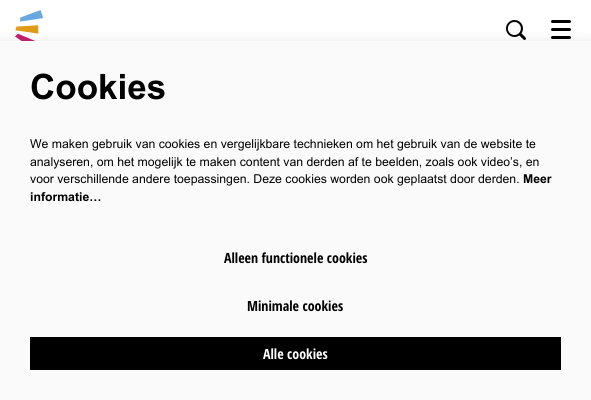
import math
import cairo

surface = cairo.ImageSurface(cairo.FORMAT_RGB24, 591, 400)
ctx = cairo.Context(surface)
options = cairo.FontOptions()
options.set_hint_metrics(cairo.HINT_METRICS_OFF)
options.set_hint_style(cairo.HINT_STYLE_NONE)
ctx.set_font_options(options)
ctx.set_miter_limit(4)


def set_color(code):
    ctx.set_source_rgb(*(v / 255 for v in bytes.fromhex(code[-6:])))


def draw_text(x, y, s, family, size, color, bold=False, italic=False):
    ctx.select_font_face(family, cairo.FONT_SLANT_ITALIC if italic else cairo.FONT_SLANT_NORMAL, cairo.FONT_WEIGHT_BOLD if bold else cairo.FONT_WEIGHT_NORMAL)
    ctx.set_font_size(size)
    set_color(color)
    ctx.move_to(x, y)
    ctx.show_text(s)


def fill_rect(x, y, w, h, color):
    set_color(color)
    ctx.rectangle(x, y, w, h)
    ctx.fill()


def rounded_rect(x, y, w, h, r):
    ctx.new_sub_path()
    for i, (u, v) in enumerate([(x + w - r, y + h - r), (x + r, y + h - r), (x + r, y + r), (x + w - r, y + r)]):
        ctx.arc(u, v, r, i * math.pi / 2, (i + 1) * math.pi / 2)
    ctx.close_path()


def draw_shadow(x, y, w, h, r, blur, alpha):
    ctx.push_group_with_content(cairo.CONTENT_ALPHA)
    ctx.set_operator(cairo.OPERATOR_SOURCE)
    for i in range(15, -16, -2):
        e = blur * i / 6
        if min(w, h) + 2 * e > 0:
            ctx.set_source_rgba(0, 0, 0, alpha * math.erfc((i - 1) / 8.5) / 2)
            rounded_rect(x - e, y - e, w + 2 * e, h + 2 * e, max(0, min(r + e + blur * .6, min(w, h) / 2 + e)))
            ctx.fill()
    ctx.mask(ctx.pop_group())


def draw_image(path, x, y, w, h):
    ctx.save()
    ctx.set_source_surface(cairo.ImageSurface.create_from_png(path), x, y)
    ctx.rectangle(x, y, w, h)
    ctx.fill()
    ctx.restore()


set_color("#ffffff")
ctx.paint()
draw_image("assets/img1.png", 15, 10, 28, 31)
draw_image("assets/img2.png", 506, 20, 20, 20)
set_color("#000000")
rounded_rect(551, 20, 20, 3, 1.5)
ctx.fill()
rounded_rect(551, 28, 20, 3, 1.5)
ctx.fill()
rounded_rect(551, 36, 20, 3, 1.5)
ctx.fill()
set_color("#000000")
draw_shadow(0, 41, 591, 359, 0, 5, 0.1)
fill_rect(0, 41, 591, 359, "#fafafa")
draw_text(30, 99, "Cookies", "Arial", 35, "#000000", bold=True)
draw_text(30, 148, "We maken gebruik van cookies en vergelijkbare technieken om het gebruik van de website te", "Arial", 12.25, "#000000")
draw_text(30, 166, "analyseren, om het mogelijk te maken content van derden af te beelden, zoals ook video’s, en", "Arial", 12.25, "#000000")
draw_text(30, 183, "voor verschillende andere toepassingen. Deze cookies worden ook geplaatst door derden.", "Arial", 12.25, "#000000")
draw_text(523, 183, "Meer", "Arial", 12.25, "#000000", bold=True)
draw_text(30, 201, "informatie…", "Arial", 12.25, "#000000", bold=True)
draw_text(224, 263, "Alleen functionele cookies", "Open Sans Condensed", 14, "#000000", bold=True)
draw_text(247, 311, "Minimale cookies", "Open Sans Condensed", 14, "#000000", bold=True)
fill_rect(30, 337, 531, 33, "#000000")
draw_text(263, 359, "Alle cookies", "Open Sans Condensed", 14, "#ffffff", bold=True)
surface.write_to_png("output.png")
